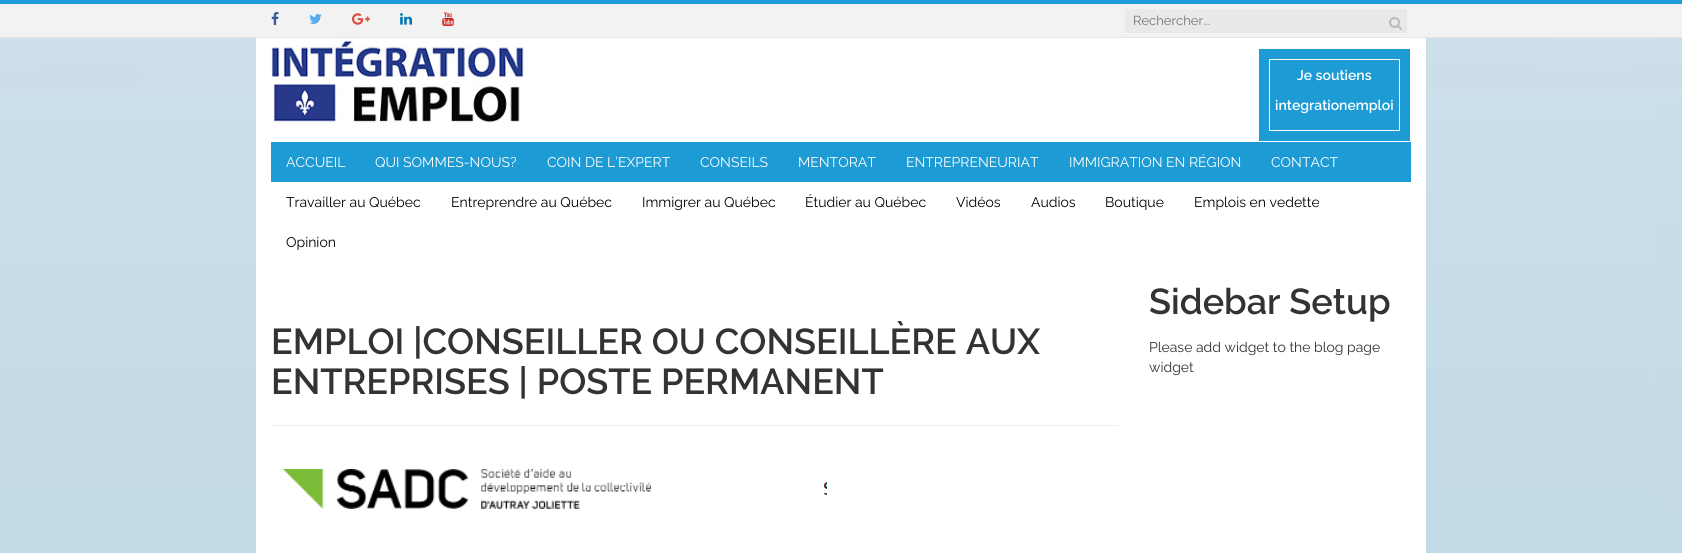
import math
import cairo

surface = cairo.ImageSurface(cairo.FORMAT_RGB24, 1682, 553)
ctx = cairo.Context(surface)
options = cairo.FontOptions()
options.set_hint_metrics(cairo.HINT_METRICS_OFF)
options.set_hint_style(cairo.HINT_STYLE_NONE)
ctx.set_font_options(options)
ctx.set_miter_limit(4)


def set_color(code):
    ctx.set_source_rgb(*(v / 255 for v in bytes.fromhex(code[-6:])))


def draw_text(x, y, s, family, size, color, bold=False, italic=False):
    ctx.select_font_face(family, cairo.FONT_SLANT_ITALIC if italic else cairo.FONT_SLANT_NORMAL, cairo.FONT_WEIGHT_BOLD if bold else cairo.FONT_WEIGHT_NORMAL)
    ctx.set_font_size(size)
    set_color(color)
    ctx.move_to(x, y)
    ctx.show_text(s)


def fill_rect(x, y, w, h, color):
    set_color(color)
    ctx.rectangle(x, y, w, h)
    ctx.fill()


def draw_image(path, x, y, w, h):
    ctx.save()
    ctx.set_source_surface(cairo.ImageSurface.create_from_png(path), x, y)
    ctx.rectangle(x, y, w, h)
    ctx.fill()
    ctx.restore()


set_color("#ffffff")
ctx.paint()
draw_image("assets/img1.png", 0, 38, 1682, 515)
fill_rect(0, 4, 1682, 33, "#f2f2f2")
fill_rect(0, 0, 1682, 4, "#209cda")
fill_rect(0, 37, 1682, 1, "#e7e7e7")
draw_image("assets/img2.png", 271, 12, 8, 13)
draw_image("assets/img3.png", 309, 14, 13, 10)
draw_image("assets/img4.png", 352, 13, 18, 12)
draw_image("assets/img5.png", 400, 13, 12, 12)
draw_image("assets/img6.png", 442, 12, 12, 14)
fill_rect(1125, 9, 282, 24, "#e9e9e9")
draw_text(1133, 25, "Rechercher...", "Raleway", 13, "#757575")
draw_image("assets/img7.png", 1389, 17, 13, 13)
fill_rect(256, 38, 1170, 515, "#ffffff")
draw_image("assets/img8.png", 271, 38, 254, 85)
fill_rect(1259, 49, 151, 92, "#1d9bd5")
ctx.rectangle(1269.5, 59.5, 130, 71)
set_color("#ffffff")
ctx.set_line_width(1)
ctx.stroke()
draw_text(1297, 80, "Je soutiens", "Raleway SemiBold", 14, "#ffffff")
draw_text(1275, 110, "integrationemploi", "Raleway SemiBold", 14, "#ffffff")
fill_rect(271, 142, 1140, 40, "#1d9bd5")
draw_text(286, 167, "ACCUEIL", "Raleway", 14, "#ffffff")
draw_text(375, 167, "QUI SOMMES-NOUS?", "Raleway", 14, "#ffffff")
draw_text(547, 167, "COIN DE L’EXPERT", "Raleway", 14, "#ffffff")
draw_text(700, 167, "CONSEILS", "Raleway", 14, "#ffffff")
draw_text(798, 167, "MENTORAT", "Raleway", 14, "#ffffff")
draw_text(906, 167, "ENTREPRENEURIAT", "Raleway", 14, "#ffffff")
draw_text(1069, 167, "IMMIGRATION EN RÉGION", "Raleway", 14, "#ffffff")
draw_text(1271, 167, "CONTACT", "Raleway", 14, "#ffffff")
draw_text(286, 207, "Travailler au Québec", "Raleway", 14, "#000000")
draw_text(451, 207, "Entreprendre au Québec", "Raleway", 14, "#000000")
draw_text(642, 207, "Immigrer au Québec", "Raleway", 14, "#000000")
draw_text(805, 207, "Étudier au Québec", "Raleway", 14, "#000000")
draw_text(956, 207, "Vidéos", "Raleway", 14, "#000000")
draw_text(1031, 207, "Audios", "Raleway", 14, "#000000")
draw_text(1105, 207, "Boutique", "Raleway", 14, "#000000")
draw_text(1194, 207, "Emplois en vedette", "Raleway", 14, "#000000")
draw_text(286, 247, "Opinion", "Raleway", 14, "#000000")
fill_rect(271, 425, 848, 1, "#eeeeee")
draw_text(271, 354, "EMPLOI |CONSEILLER OU CONSEILLÈRE AUX", "Raleway SemiBold", 36, "#333333")
draw_text(271, 394, "ENTREPRISES | POSTE PERMANENT", "Raleway SemiBold", 36, "#333333")
draw_image("assets/img9.png", 283, 469, 544, 40)
draw_text(1149, 314, "Sidebar Setup", "Raleway SemiBold", 36, "#333333")
draw_text(1149, 352, "Please add widget to the blog page", "Raleway", 14, "#333333")
draw_text(1149, 372, "widget", "Raleway", 14, "#333333")
surface.write_to_png("output.png")
